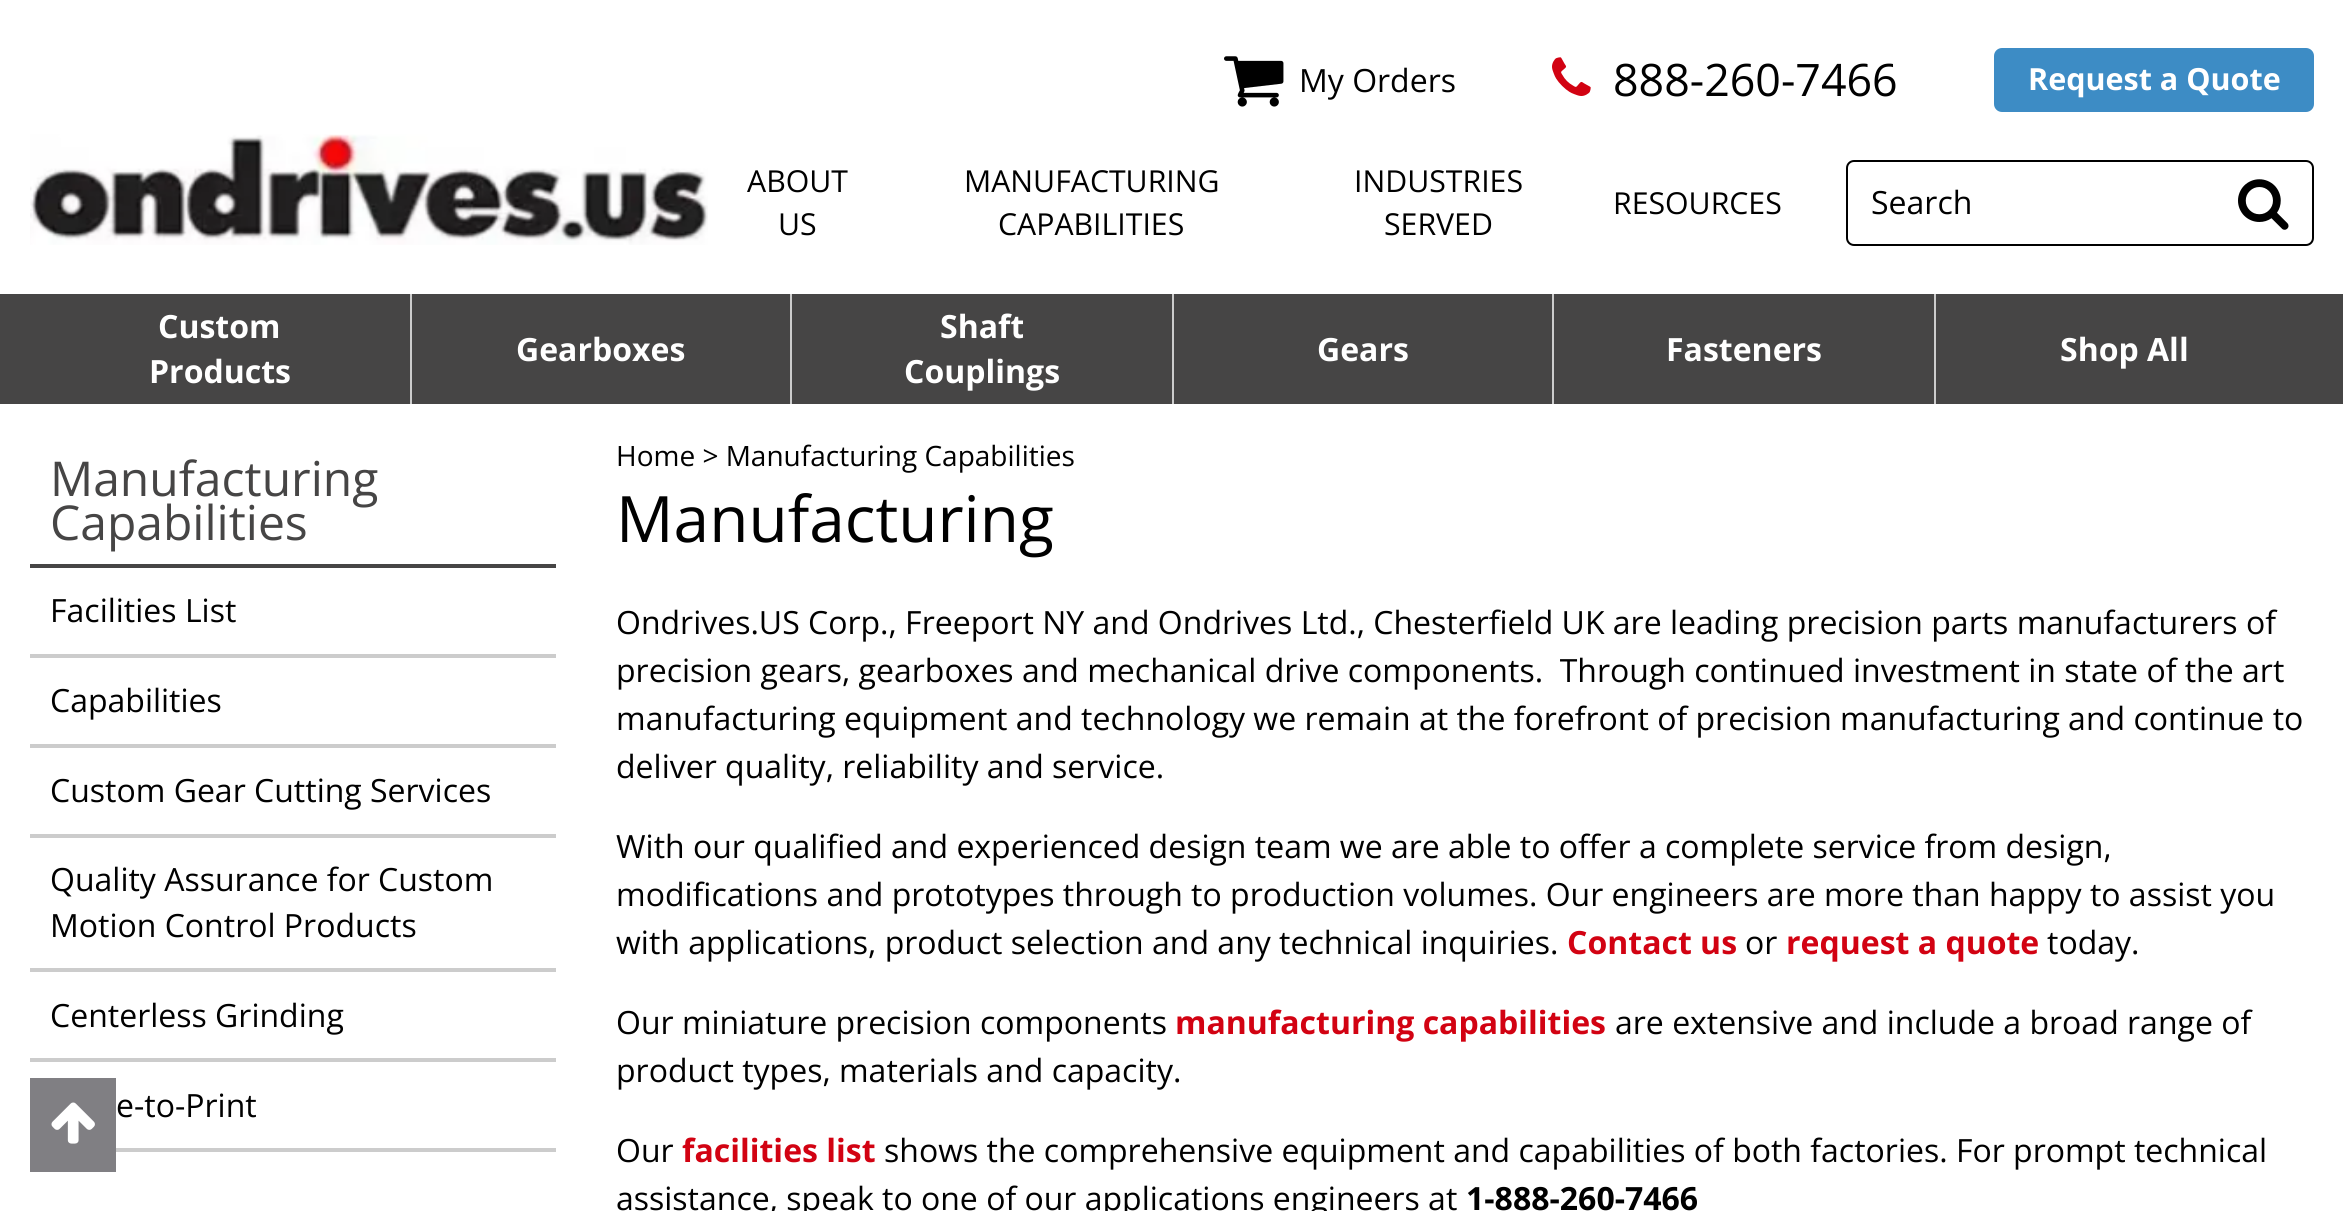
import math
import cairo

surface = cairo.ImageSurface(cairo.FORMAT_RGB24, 2343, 1211)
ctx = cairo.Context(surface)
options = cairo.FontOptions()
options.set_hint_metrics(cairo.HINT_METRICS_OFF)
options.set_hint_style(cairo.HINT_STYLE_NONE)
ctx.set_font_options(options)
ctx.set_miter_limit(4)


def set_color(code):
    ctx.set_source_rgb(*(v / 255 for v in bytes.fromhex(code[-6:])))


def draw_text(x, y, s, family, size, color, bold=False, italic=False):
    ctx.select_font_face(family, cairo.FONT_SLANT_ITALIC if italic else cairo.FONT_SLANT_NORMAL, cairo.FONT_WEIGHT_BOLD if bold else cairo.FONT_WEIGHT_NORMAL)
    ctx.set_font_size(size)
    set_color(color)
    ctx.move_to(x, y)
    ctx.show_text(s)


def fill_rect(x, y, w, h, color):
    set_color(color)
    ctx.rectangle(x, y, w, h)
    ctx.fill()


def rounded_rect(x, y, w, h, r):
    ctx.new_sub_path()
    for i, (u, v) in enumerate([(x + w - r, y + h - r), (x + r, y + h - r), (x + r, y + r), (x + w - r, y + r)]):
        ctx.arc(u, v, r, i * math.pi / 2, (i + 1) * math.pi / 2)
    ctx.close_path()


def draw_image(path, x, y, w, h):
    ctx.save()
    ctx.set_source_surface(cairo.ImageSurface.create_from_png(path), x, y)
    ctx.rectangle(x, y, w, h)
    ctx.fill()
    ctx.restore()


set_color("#ffffff")
ctx.paint()
draw_image("assets/img1.png", 30, 134, 678, 111)
draw_image("assets/img2.png", 1224, 56, 60, 51)
draw_text(1299, 92, "My Orders", "Open Sans", 32, "#000000")
draw_image("assets/img3.png", 1552, 57, 39, 39)
draw_text(1613, 96, "888-260-7466", "Open Sans", 44.75, "#000000")
set_color("#3d8cc5")
rounded_rect(1996, 50, 316, 60, 6)
ctx.fill_preserve()
ctx.set_line_width(4)
ctx.stroke()
draw_text(2028, 90, "Request a Quote", "Open Sans", 30.5, "#ffffff", bold=True)
draw_text(747, 192, "ABOUT", "Open Sans", 30.25, "#000000")
draw_text(778, 235, "US", "Open Sans", 30.25, "#000000")
draw_text(964, 192, "MANUFACTURING", "Open Sans", 30.25, "#000000")
draw_text(998, 235, "CAPABILITIES", "Open Sans", 30.25, "#000000")
draw_text(1354, 192, "INDUSTRIES", "Open Sans", 30.25, "#000000")
draw_text(1384, 235, "SERVED", "Open Sans", 30.25, "#000000")
draw_text(1613, 214, "RESOURCES", "Open Sans", 30.25, "#000000")
rounded_rect(1847, 161, 466, 84, 7)
ctx.set_line_width(2)
ctx.stroke()
draw_text(1871, 214, "Search", "Open Sans", 32, "#000000")
draw_image("assets/img4.png", 2238, 179, 51, 51)
fill_rect(0, 294, 2343, 110, "#464545")
draw_text(158, 338, "Custom", "Open Sans", 32, "#ffffff", bold=True)
draw_text(149, 383, "Products", "Open Sans", 32, "#ffffff", bold=True)
fill_rect(410, 294, 2, 110, "#cccccc")
draw_text(516, 361, "Gearboxes", "Open Sans", 32, "#ffffff", bold=True)
fill_rect(790, 294, 2, 110, "#cccccc")
draw_text(940, 338, "Shaft", "Open Sans", 32, "#ffffff", bold=True)
draw_text(904, 383, "Couplings", "Open Sans", 32, "#ffffff", bold=True)
fill_rect(1172, 294, 2, 110, "#cccccc")
draw_text(1317, 361, "Gears", "Open Sans", 32, "#ffffff", bold=True)
fill_rect(1552, 294, 2, 110, "#cccccc")
draw_text(1666, 361, "Fasteners", "Open Sans", 32, "#ffffff", bold=True)
fill_rect(1934, 294, 2, 110, "#cccccc")
draw_text(2060, 361, "Shop All", "Open Sans", 32, "#ffffff", bold=True)
fill_rect(30, 564, 526, 4, "#464545")
draw_text(50, 496, "Manufacturing", "Open Sans", 48, "#464545")
draw_text(50, 540, "Capabilities", "Open Sans", 48, "#464545")
fill_rect(30, 654, 526, 4, "#cccccc")
draw_text(50, 622, "Facilities List", "Open Sans", 32, "#000000")
fill_rect(30, 744, 526, 4, "#cccccc")
draw_text(50, 712, "Capabilities", "Open Sans", 32, "#000000")
fill_rect(30, 834, 526, 4, "#cccccc")
draw_text(50, 802, "Custom Gear Cutting Services", "Open Sans", 32, "#000000")
fill_rect(30, 968, 526, 4, "#cccccc")
draw_text(50, 891, "Quality Assurance for Custom", "Open Sans", 32, "#000000")
draw_text(50, 937, "Motion Control Products", "Open Sans", 32, "#000000")
fill_rect(30, 1058, 526, 4, "#cccccc")
draw_text(50, 1027, "Centerless Grinding", "Open Sans", 32, "#000000")
fill_rect(116, 1148, 440, 4, "#cccccc")
draw_text(116, 1117, "e-to-Print", "Open Sans", 32, "#000000")
draw_text(616, 466, "Home > Manufacturing Capabilities", "Open Sans", 28, "#000000")
draw_text(616, 542, "Manufacturing", "Open Sans", 64, "#000000")
draw_text(616, 634, "Ondrives.US Corp., Freeport NY and Ondrives Ltd., Chesterfield UK are leading precision parts manufacturers of", "Open Sans", 32, "#000000")
draw_text(616, 682, "precision gears, gearboxes and mechanical drive components.  Through continued investment in state of the art", "Open Sans", 32, "#000000")
draw_text(616, 730, "manufacturing equipment and technology we remain at the forefront of precision manufacturing and continue to", "Open Sans", 32, "#000000")
draw_text(616, 778, "deliver quality, reliability and service.", "Open Sans", 32, "#000000")
draw_text(616, 858, "With our qualified and experienced design team we are able to offer a complete service from design,", "Open Sans", 32, "#000000")
draw_text(616, 906, "modifications and prototypes through to production volumes. Our engineers are more than happy to assist you", "Open Sans", 32, "#000000")
draw_text(616, 954, "with applications, product selection and any technical inquiries.", "Open Sans", 32, "#000000")
draw_text(1567, 954, "Contact us", "Open Sans", 32, "#d20212", bold=True)
draw_text(1745, 954, "or", "Open Sans", 32, "#000000")
draw_text(1786, 954, "request a quote", "Open Sans", 32, "#d20212", bold=True)
draw_text(2047, 954, "today.", "Open Sans", 32, "#000000")
draw_text(616, 1034, "Our miniature precision components", "Open Sans", 32, "#000000")
draw_text(1175, 1034, "manufacturing capabilities", "Open Sans", 32, "#d20212", bold=True)
draw_text(1615, 1034, "are extensive and include a broad range of", "Open Sans", 32, "#000000")
draw_text(616, 1082, "product types, materials and capacity.", "Open Sans", 32, "#000000")
draw_text(616, 1162, "Our", "Open Sans", 32, "#000000")
draw_text(682, 1162, "facilities list", "Open Sans", 32, "#d20212", bold=True)
draw_text(884, 1162, "shows the comprehensive equipment and capabilities of both factories. For prompt technical", "Open Sans", 32, "#000000")
draw_text(616, 1210, "assistance, speak to one of our applications engineers at", "Open Sans", 32, "#000000")
draw_text(1466, 1210, "1-888-260-7466", "Open Sans", 32, "#000000", bold=True)
fill_rect(30, 1078, 86, 94, "#807f83")
draw_image("assets/img5.png", 51, 1102, 44, 42)
surface.write_to_png("output.png")
